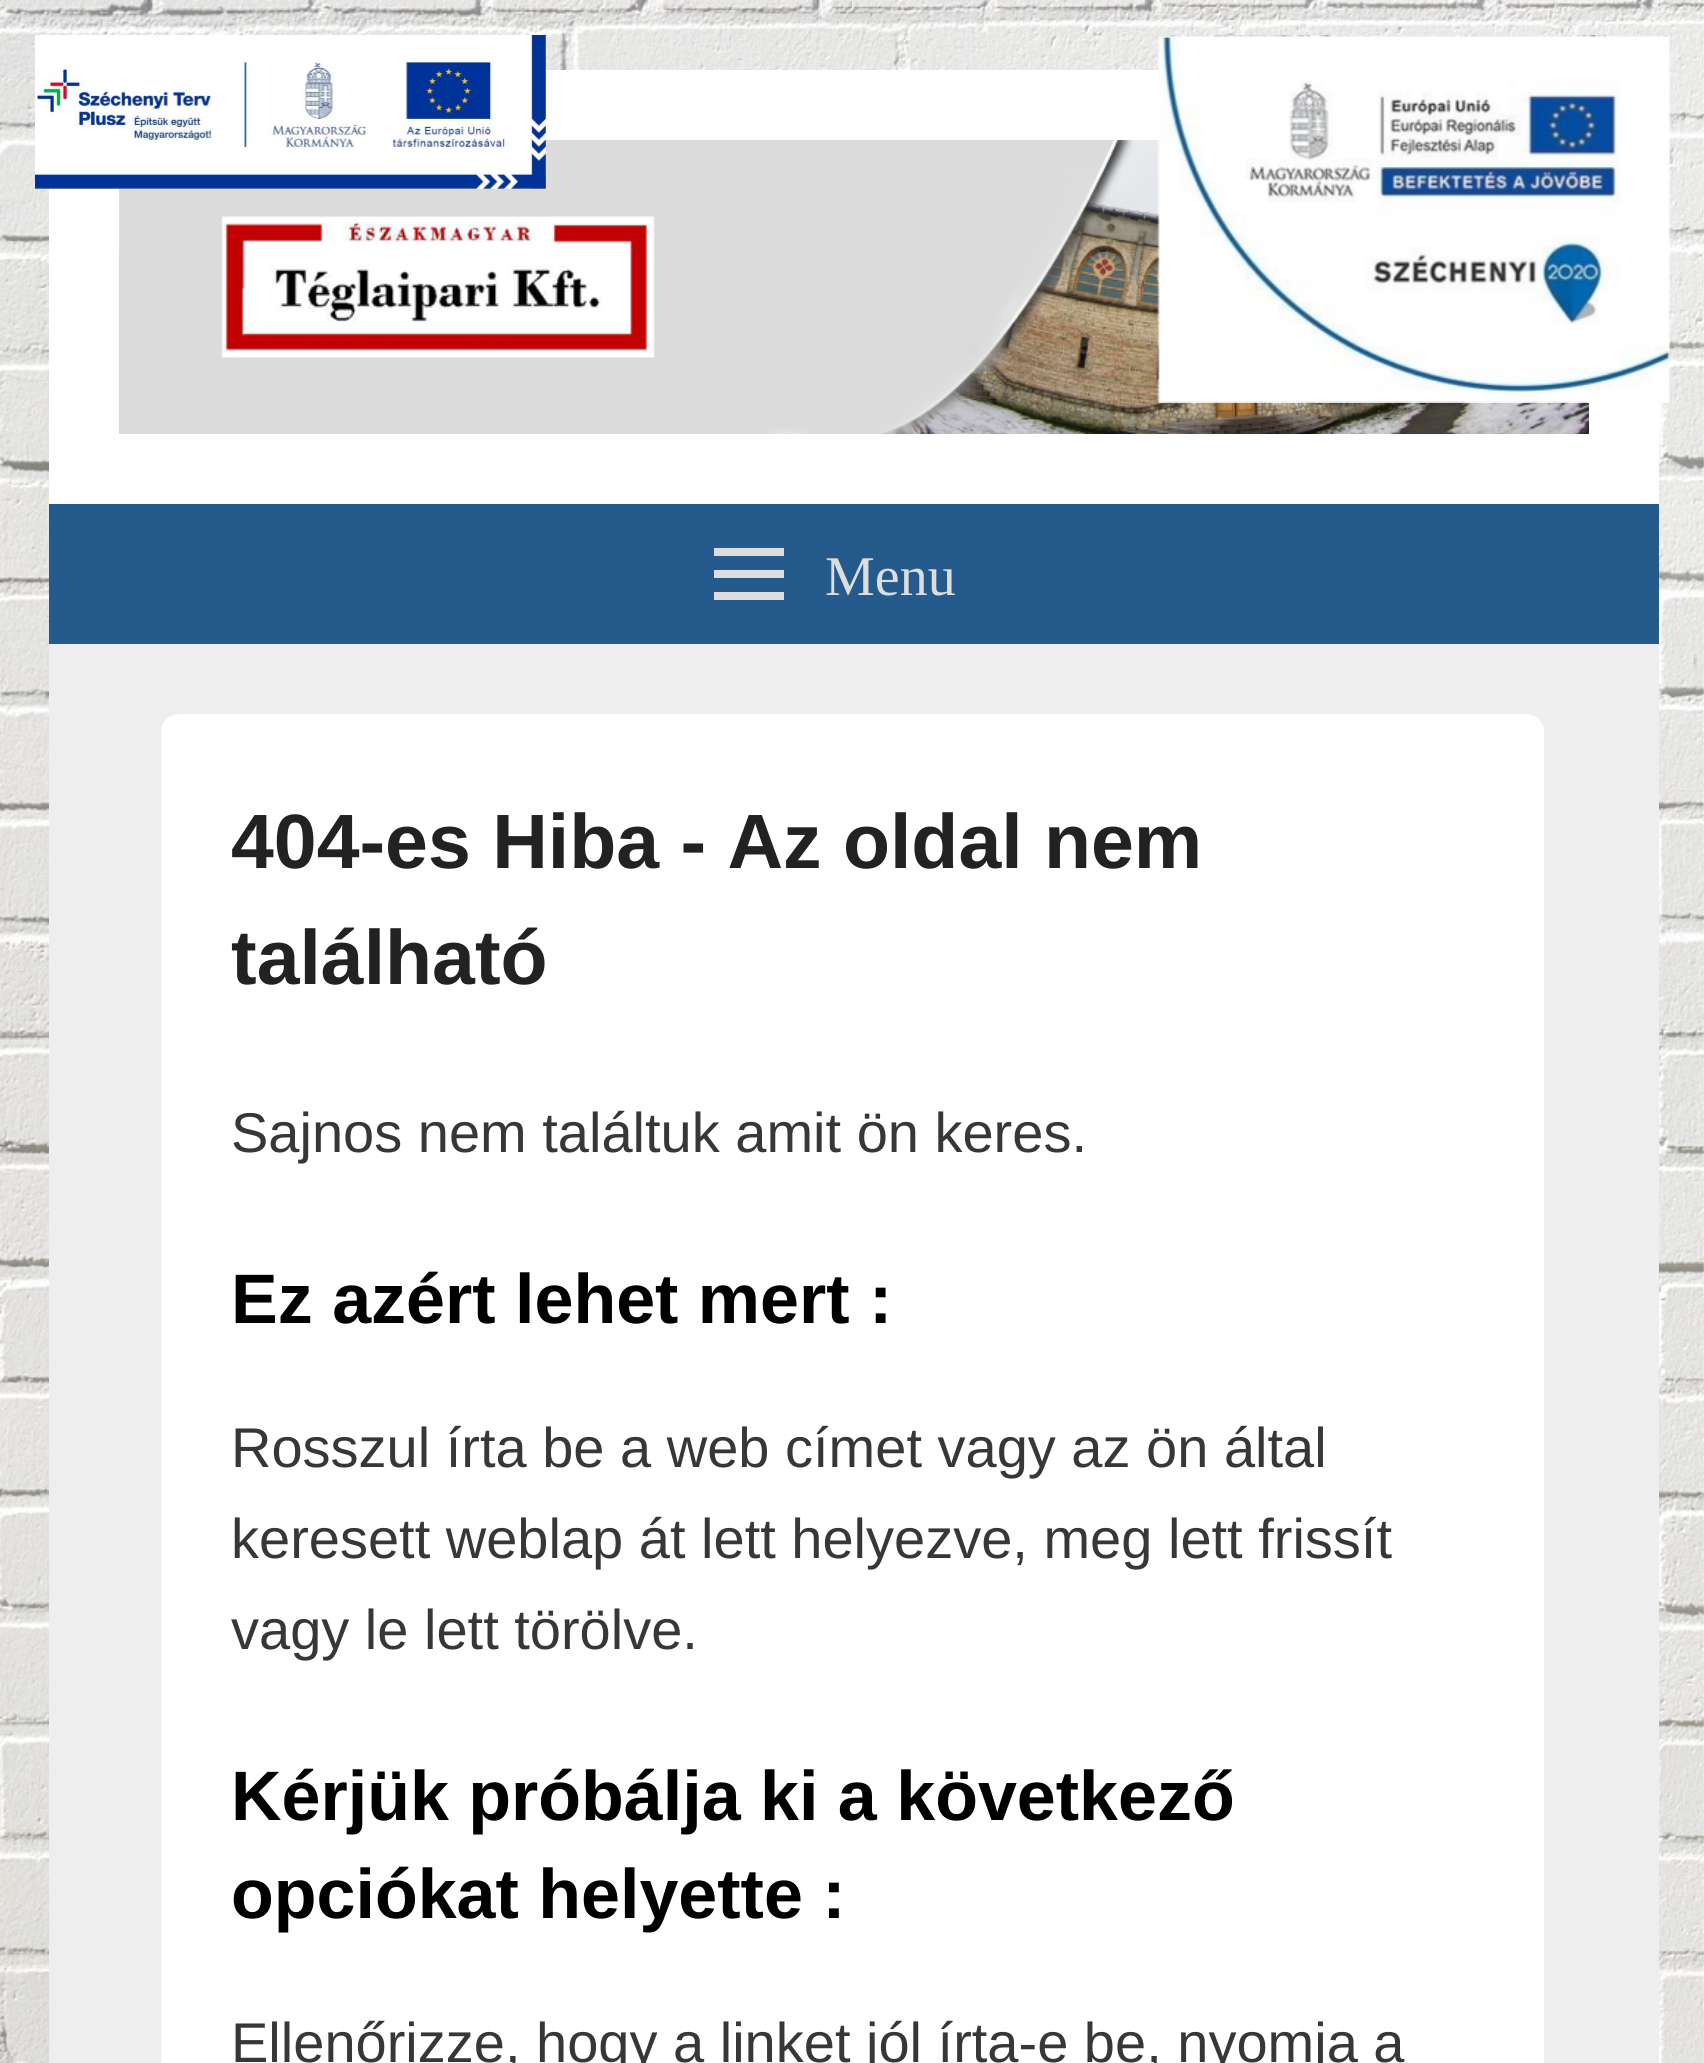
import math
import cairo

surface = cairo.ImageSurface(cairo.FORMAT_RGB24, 1704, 2063)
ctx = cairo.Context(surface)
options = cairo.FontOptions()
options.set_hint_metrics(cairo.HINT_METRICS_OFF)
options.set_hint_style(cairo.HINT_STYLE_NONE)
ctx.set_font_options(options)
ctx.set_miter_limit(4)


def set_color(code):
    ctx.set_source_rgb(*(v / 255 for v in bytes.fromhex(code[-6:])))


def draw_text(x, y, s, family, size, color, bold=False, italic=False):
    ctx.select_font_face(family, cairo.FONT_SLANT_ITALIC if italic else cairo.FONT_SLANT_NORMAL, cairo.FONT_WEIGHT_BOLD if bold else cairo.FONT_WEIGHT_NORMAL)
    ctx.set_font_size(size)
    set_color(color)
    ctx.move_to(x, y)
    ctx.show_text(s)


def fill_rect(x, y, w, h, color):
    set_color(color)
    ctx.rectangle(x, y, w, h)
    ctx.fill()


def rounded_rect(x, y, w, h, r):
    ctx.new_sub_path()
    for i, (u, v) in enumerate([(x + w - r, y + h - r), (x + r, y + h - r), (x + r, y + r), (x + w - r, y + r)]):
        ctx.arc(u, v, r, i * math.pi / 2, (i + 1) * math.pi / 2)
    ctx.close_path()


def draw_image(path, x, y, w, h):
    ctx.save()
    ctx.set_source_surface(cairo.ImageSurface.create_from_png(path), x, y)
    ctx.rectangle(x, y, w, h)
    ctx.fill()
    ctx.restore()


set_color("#ffffff")
ctx.paint()
draw_image("assets/img1.png", 0, 0, 1704, 2063)
fill_rect(49, 644, 1610, 1419, "#eeeeee")
fill_rect(49, 70, 1610, 434, "#ffffff")
draw_image("assets/img4.png", 119, 140, 1470, 294)
draw_image("assets/img2.png", 35, 35, 511, 154)
draw_image("assets/img3.png", 1157, 35, 513, 368)
fill_rect(49, 504, 1610, 140, "#255a8c")
set_color("#dddddd")
ctx.new_path()
ctx.move_to(714, 600)
ctx.line_to(714, 592)
ctx.line_to(784, 592)
ctx.line_to(784, 600)
ctx.close_path()
ctx.move_to(714, 548)
ctx.line_to(784, 548)
ctx.line_to(784, 556)
ctx.line_to(714, 556)
ctx.close_path()
ctx.move_to(714, 578)
ctx.line_to(714, 570)
ctx.line_to(784, 570)
ctx.line_to(784, 578)
ctx.close_path()
ctx.fill()
draw_text(825, 595, "Menu", "Liberation Serif", 56, "#dddddd")
set_color("#ffffff")
rounded_rect(161, 714, 1383, 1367, 18)
ctx.fill()
draw_text(231, 868, "404-es Hiba - Az oldal nem", "Liberation Sans", 77, "#222222", bold=True)
draw_text(231, 984, "található", "Liberation Sans", 77, "#222222", bold=True)
draw_text(231, 1152, "Sajnos nem találtuk amit ön keres.", "Liberation Sans", 56, "#373737")
draw_text(231, 1323, "Ez azért lehet mert :", "Liberation Sans", 70, "#000000", bold=True)
draw_text(231, 1467, "Rosszul írta be a web címet vagy az ön által", "Liberation Sans", 56, "#373737")
draw_text(231, 1558, "keresett weblap át lett helyezve, meg lett frissít", "Liberation Sans", 56, "#373737")
draw_text(231, 1649, "vagy le lett törölve.", "Liberation Sans", 56, "#373737")
draw_text(231, 1820, "Kérjük próbálja ki a következő", "Liberation Sans", 70, "#000000", bold=True)
draw_text(231, 1918, "opciókat helyette :", "Liberation Sans", 70, "#000000", bold=True)
draw_text(231, 2062, "Ellenőrizze, hogy a linket jól írta-e be, nyomja a", "Liberation Sans", 56, "#373737")
surface.write_to_png("output.png")
